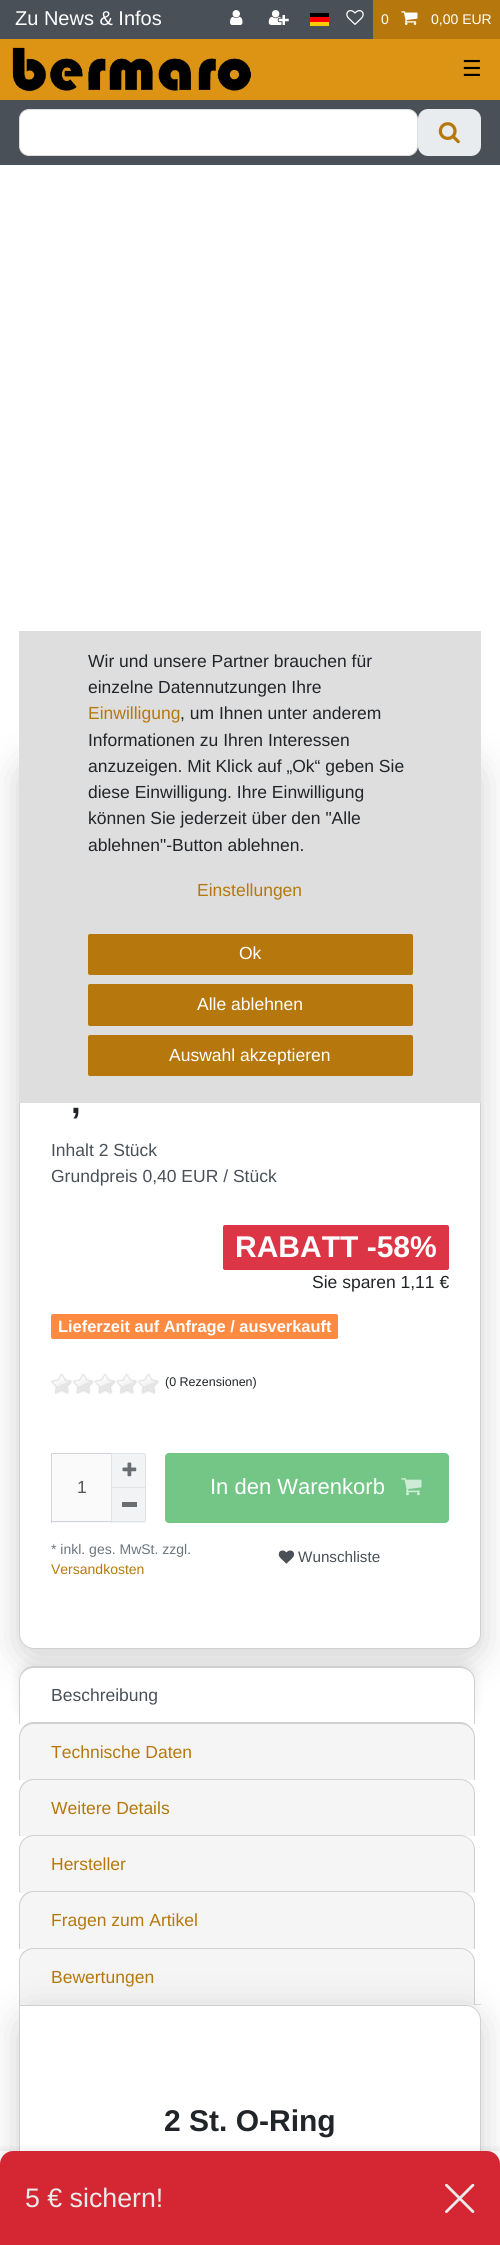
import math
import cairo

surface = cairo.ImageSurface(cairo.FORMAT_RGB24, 500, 2245)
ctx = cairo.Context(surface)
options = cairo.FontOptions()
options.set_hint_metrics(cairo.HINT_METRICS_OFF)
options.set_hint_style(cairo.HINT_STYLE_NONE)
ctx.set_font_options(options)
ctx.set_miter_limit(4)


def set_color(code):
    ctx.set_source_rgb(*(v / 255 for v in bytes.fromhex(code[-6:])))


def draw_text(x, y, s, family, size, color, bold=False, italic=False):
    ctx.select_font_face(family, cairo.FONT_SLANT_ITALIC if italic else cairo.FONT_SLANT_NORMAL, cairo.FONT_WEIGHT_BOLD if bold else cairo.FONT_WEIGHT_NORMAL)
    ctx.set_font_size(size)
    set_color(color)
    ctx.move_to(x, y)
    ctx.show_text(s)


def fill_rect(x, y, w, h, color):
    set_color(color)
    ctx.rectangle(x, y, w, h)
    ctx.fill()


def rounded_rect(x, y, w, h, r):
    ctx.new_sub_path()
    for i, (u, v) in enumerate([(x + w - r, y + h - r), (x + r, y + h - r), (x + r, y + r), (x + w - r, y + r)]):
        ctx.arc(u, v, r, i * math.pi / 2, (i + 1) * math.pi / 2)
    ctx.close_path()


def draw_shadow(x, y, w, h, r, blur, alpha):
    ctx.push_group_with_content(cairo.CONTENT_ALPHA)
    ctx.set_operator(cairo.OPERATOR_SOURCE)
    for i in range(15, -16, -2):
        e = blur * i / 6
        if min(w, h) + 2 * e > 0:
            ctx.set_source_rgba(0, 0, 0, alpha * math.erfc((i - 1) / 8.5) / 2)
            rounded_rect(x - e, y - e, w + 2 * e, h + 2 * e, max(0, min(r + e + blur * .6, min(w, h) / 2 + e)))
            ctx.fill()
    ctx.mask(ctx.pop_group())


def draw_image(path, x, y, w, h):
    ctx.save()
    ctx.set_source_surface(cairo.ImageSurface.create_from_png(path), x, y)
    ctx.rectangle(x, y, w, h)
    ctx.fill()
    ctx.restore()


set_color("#ffffff")
ctx.paint()
fill_rect(0, 0, 373, 39, "#495057")
draw_text(15, 25, "Zu News & Infos", "Liberation Sans", 20, "#ffffff")
draw_image("assets/img1.png", 230, 10, 13, 15)
draw_image("assets/img2.png", 268, 10, 21, 15)
fill_rect(310, 22, 19, 4, "#ffcc00")
fill_rect(310, 13, 19, 4, "#000000")
fill_rect(310, 17, 19, 5, "#ff0000")
draw_image("assets/img3.png", 346, 10, 18, 15)
fill_rect(373, 0, 127, 39, "#b6780c")
draw_text(381, 24, "0", "Liberation Sans", 14, "#ffffff")
draw_image("assets/img4.png", 401, 11, 17, 14)
draw_text(431, 24, "0,00 EUR", "Liberation Sans", 14, "#ffffff")
fill_rect(0, 39, 500, 61, "#dd9313")
draw_image("assets/img5.png", 12, 47, 239, 45)
draw_text(462, 76, "☰", "DejaVu Sans", 22, "#000000")
fill_rect(0, 100, 500, 65, "#495057")
set_color("#ffffff")
rounded_rect(19.5, 109.5, 398, 46, 9.5)
ctx.fill_preserve()
set_color("#dddddd")
ctx.set_line_width(1)
ctx.stroke()
set_color("#e9ecef")
rounded_rect(418, 109, 63, 47, 10)
ctx.fill()
draw_image("assets/img6.png", 438, 122, 22, 22)
set_color("#000000")
draw_shadow(19, 763, 462, 896, 15, 19, 0.18)
set_color("#ffffff")
rounded_rect(19.5, 753.5, 461, 895, 14.5)
ctx.fill_preserve()
set_color("#d0d0d0")
ctx.stroke()
fill_rect(19, 631, 462, 472, "#dedede")
draw_text(88, 667, "Wir und unsere Partner brauchen für", "Liberation Sans", 17.5, "#212529")
draw_text(88, 693, "einzelne Datennutzungen Ihre", "Liberation Sans", 17.5, "#212529")
draw_text(88, 719, "Einwilligung", "Liberation Sans", 17.5, "#b6780c")
draw_text(180, 719, ", um Ihnen unter anderem", "Liberation Sans", 17.5, "#212529")
draw_text(88, 746, "Informationen zu Ihren Interessen", "Liberation Sans", 17.5, "#212529")
draw_text(88, 772, "anzuzeigen. Mit Klick auf „Ok“ geben Sie", "Liberation Sans", 17.5, "#212529")
draw_text(88, 798, "diese Einwilligung. Ihre Einwilligung", "Liberation Sans", 17.5, "#212529")
draw_text(88, 824, "können Sie jederzeit über den \"Alle", "Liberation Sans", 17.5, "#212529")
draw_text(88, 851, "ablehnen\"-Button ablehnen.", "Liberation Sans", 17.5, "#212529")
draw_text(197, 896, "Einstellungen", "Liberation Sans", 17.5, "#b6780c")
rounded_rect(88.5, 934.5, 324, 40, 1.5)
ctx.fill_preserve()
ctx.stroke()
draw_text(239, 959, "Ok", "Liberation Sans", 17.5, "#ffffff")
set_color("#b6780c")
rounded_rect(88.5, 984.5, 324, 41, 1.5)
ctx.fill_preserve()
ctx.stroke()
draw_text(197, 1010, "Alle ablehnen", "Liberation Sans", 17.5, "#ffffff")
set_color("#b6780c")
rounded_rect(88.5, 1035.5, 324, 40, 1.5)
ctx.fill_preserve()
ctx.stroke()
draw_text(169, 1061, "Auswahl akzeptieren", "Liberation Sans", 17.5, "#ffffff")
draw_text(71, 1113, ",", "Liberation Sans", 35, "#212529", bold=True)
draw_text(51, 1156, "Inhalt 2 Stück", "Liberation Sans", 17.5, "#495057")
draw_text(51, 1182, "Grundpreis 0,40 EUR / Stück", "Liberation Sans", 17.5, "#495057")
set_color("#dc3545")
rounded_rect(223, 1225, 226, 45, 2)
ctx.fill()
draw_text(235, 1257, "RABATT -58%", "Liberation Sans", 30, "#ffffff", bold=True)
draw_text(312, 1288, "Sie sparen 1,11 €", "Liberation Sans", 17.5, "#212529")
set_color("#ff8a42")
rounded_rect(51, 1314, 287, 25, 2)
ctx.fill()
draw_text(58, 1332, "Lieferzeit auf Anfrage / ausverkauft", "Liberation Sans", 16.4, "#ffffff", bold=True)
draw_image("assets/img7.png", 51, 1373, 108, 21)
draw_text(165, 1386, "(0 Rezensionen)", "Liberation Sans", 12.5, "#212529")
fill_rect(52, 1454, 59, 69, "#fafafa")
fill_rect(51, 1453, 60, 1, "#ced4da")
fill_rect(51, 1521, 60, 1, "#ced4da")
fill_rect(51, 1453, 1, 70, "#ced4da")
draw_text(77, 1493, "1", "Liberation Sans", 17.5, "#545454")
set_color("#f1f3f5")
ctx.new_path()
ctx.move_to(111.5, 1453.5)
ctx.line_to(144, 1453.5)
ctx.curve_to(145, 1453.5, 145.5, 1454, 145.5, 1455)
ctx.line_to(145.5, 1487.5)
ctx.line_to(111.5, 1487.5)
ctx.close_path()
ctx.fill_preserve()
set_color("#dfe3e7")
ctx.stroke()
draw_image("assets/img8.png", 122, 1462, 15, 15)
set_color("#f1f3f5")
ctx.new_path()
ctx.move_to(111, 1488)
ctx.line_to(146, 1488)
ctx.line_to(146, 1521)
ctx.curve_to(146, 1522, 145, 1523, 144, 1523)
ctx.line_to(111, 1523)
ctx.close_path()
ctx.fill()
fill_rect(145, 1488, 1, 33, "#dfe3e7")
fill_rect(111, 1521, 34, 1, "#dfe3e7")
fill_rect(111, 1488, 1, 35, "#dfe3e7")
fill_rect(122, 1502, 15, 5, "#6a6d70")
set_color("#73c686")
rounded_rect(165.5, 1453.5, 283, 69, 3.5)
ctx.fill_preserve()
ctx.stroke()
draw_text(210, 1494, "In den Warenkorb", "Liberation Sans", 22, "#ffffff")
draw_image("assets/img9.png", 401, 1478, 21, 18)
draw_text(51, 1554, "* inkl. ges. MwSt. zzgl.", "Liberation Sans", 14, "#6c757d")
draw_text(51, 1574, "Versandkosten", "Liberation Sans", 14, "#b6780c")
draw_image("assets/img10.png", 278, 1550, 17, 14)
draw_text(298, 1562, "Wunschliste", "Liberation Sans", 15.25, "#495057")
fill_rect(475, 2004, 6, 1, "#dddddd")
set_color("#000000")
draw_shadow(19, 1663, 456, 57, 15, 6, 0.08)
set_color("#ffffff")
ctx.new_path()
ctx.move_to(34, 1666)
ctx.line_to(460, 1666)
ctx.curve_to(468.5, 1666, 475, 1672.5, 475, 1681)
ctx.line_to(475, 1724)
ctx.line_to(19, 1724)
ctx.line_to(19, 1681)
ctx.curve_to(19, 1672.5, 25.5, 1666, 34, 1666)
ctx.close_path()
ctx.fill()
set_color("#d0d0d0")
ctx.set_fill_rule(cairo.FILL_RULE_EVEN_ODD)
ctx.new_path()
ctx.move_to(34, 1666)
ctx.line_to(460, 1666)
ctx.curve_to(468, 1666, 475, 1673, 475, 1681)
ctx.line_to(475, 1724)
ctx.line_to(19, 1724)
ctx.line_to(19, 1681)
ctx.curve_to(19, 1673, 25, 1666, 34, 1666)
ctx.close_path()
ctx.move_to(34, 1668)
ctx.line_to(460, 1668)
ctx.curve_to(468, 1668, 474, 1674, 474, 1681)
ctx.line_to(474, 1724)
ctx.line_to(20, 1724)
ctx.line_to(20, 1681)
ctx.curve_to(20, 1674, 26, 1668, 34, 1668)
ctx.close_path()
ctx.fill()
draw_text(51, 1701, "Beschreibung", "Liberation Sans", 17.5, "#495057")
set_color("#f5f5f5")
ctx.new_path()
ctx.move_to(34, 1723)
ctx.line_to(460, 1723)
ctx.curve_to(468.5, 1723, 475, 1729.5, 475, 1738)
ctx.line_to(475, 1780)
ctx.line_to(19, 1780)
ctx.line_to(19, 1738)
ctx.curve_to(19, 1729.5, 25.5, 1723, 34, 1723)
ctx.close_path()
ctx.fill()
set_color("#d0d0d0")
ctx.new_path()
ctx.move_to(34, 1722)
ctx.line_to(460, 1722)
ctx.curve_to(468, 1722, 475, 1729, 475, 1738)
ctx.line_to(475, 1780)
ctx.line_to(19, 1780)
ctx.line_to(19, 1738)
ctx.curve_to(19, 1729, 25, 1722, 34, 1722)
ctx.close_path()
ctx.move_to(34, 1724)
ctx.line_to(460, 1724)
ctx.curve_to(468, 1724, 474, 1730, 474, 1738)
ctx.line_to(474, 1780)
ctx.line_to(20, 1780)
ctx.line_to(20, 1738)
ctx.curve_to(20, 1730, 26, 1724, 34, 1724)
ctx.close_path()
ctx.fill()
draw_text(51, 1758, "Technische Daten", "Liberation Sans", 17.5, "#b6780c")
set_color("#f5f5f5")
ctx.new_path()
ctx.move_to(34, 1779)
ctx.line_to(460, 1779)
ctx.curve_to(468.5, 1779, 475, 1785.5, 475, 1794)
ctx.line_to(475, 1836)
ctx.line_to(19, 1836)
ctx.line_to(19, 1794)
ctx.curve_to(19, 1785.5, 25.5, 1779, 34, 1779)
ctx.close_path()
ctx.fill()
set_color("#d0d0d0")
ctx.new_path()
ctx.move_to(34, 1779)
ctx.line_to(460, 1779)
ctx.curve_to(468, 1779, 475, 1785, 475, 1794)
ctx.line_to(475, 1836)
ctx.line_to(19, 1836)
ctx.line_to(19, 1794)
ctx.curve_to(19, 1785, 25, 1779, 34, 1779)
ctx.close_path()
ctx.move_to(34, 1780)
ctx.line_to(460, 1780)
ctx.curve_to(468, 1780, 474, 1786, 474, 1794)
ctx.line_to(474, 1836)
ctx.line_to(20, 1836)
ctx.line_to(20, 1794)
ctx.curve_to(20, 1786, 26, 1780, 34, 1780)
ctx.close_path()
ctx.fill()
draw_text(51, 1814, "Weitere Details", "Liberation Sans", 17.5, "#b6780c")
set_color("#f5f5f5")
ctx.new_path()
ctx.move_to(34, 1835)
ctx.line_to(460, 1835)
ctx.curve_to(468.5, 1835, 475, 1841.5, 475, 1850)
ctx.line_to(475, 1893)
ctx.line_to(19, 1893)
ctx.line_to(19, 1850)
ctx.curve_to(19, 1841.5, 25.5, 1835, 34, 1835)
ctx.close_path()
ctx.fill()
set_color("#d0d0d0")
ctx.new_path()
ctx.move_to(34, 1835)
ctx.line_to(460, 1835)
ctx.curve_to(468, 1835, 475, 1842, 475, 1850)
ctx.line_to(475, 1892)
ctx.line_to(19, 1892)
ctx.line_to(19, 1850)
ctx.curve_to(19, 1842, 25, 1835, 34, 1835)
ctx.close_path()
ctx.move_to(34, 1836)
ctx.line_to(460, 1836)
ctx.curve_to(468, 1836, 474, 1842, 474, 1850)
ctx.line_to(474, 1892)
ctx.line_to(20, 1892)
ctx.line_to(20, 1850)
ctx.curve_to(20, 1842, 26, 1836, 34, 1836)
ctx.close_path()
ctx.fill()
draw_text(51, 1870, "Hersteller", "Liberation Sans", 17.5, "#b6780c")
set_color("#f5f5f5")
ctx.new_path()
ctx.move_to(34, 1891)
ctx.line_to(460, 1891)
ctx.curve_to(468.5, 1891, 475, 1897.5, 475, 1906)
ctx.line_to(475, 1949)
ctx.line_to(19, 1949)
ctx.line_to(19, 1906)
ctx.curve_to(19, 1897.5, 25.5, 1891, 34, 1891)
ctx.close_path()
ctx.fill()
set_color("#d0d0d0")
ctx.new_path()
ctx.move_to(34, 1891)
ctx.line_to(460, 1891)
ctx.curve_to(468, 1891, 475, 1898, 475, 1906)
ctx.line_to(475, 1949)
ctx.line_to(19, 1949)
ctx.line_to(19, 1906)
ctx.curve_to(19, 1898, 25, 1891, 34, 1891)
ctx.close_path()
ctx.move_to(34, 1892)
ctx.line_to(460, 1892)
ctx.curve_to(468, 1892, 474, 1899, 474, 1906)
ctx.line_to(474, 1949)
ctx.line_to(20, 1949)
ctx.line_to(20, 1906)
ctx.curve_to(20, 1899, 26, 1892, 34, 1892)
ctx.close_path()
ctx.fill()
draw_text(51, 1926, "Fragen zum Artikel", "Liberation Sans", 17.5, "#b6780c")
set_color("#f5f5f5")
ctx.new_path()
ctx.move_to(34, 1948)
ctx.line_to(460, 1948)
ctx.curve_to(468.5, 1948, 475, 1954.5, 475, 1963)
ctx.line_to(475, 2005)
ctx.line_to(19, 2005)
ctx.line_to(19, 1963)
ctx.curve_to(19, 1954.5, 25.5, 1948, 34, 1948)
ctx.close_path()
ctx.fill()
set_color("#d0d0d0")
ctx.new_path()
ctx.move_to(34, 1948)
ctx.line_to(460, 1948)
ctx.curve_to(468, 1948, 475, 1954, 475, 1962)
ctx.line_to(475, 2005)
ctx.line_to(19, 2005)
ctx.line_to(19, 1962)
ctx.curve_to(19, 1954, 25, 1948, 34, 1948)
ctx.close_path()
ctx.move_to(34, 1949)
ctx.line_to(460, 1949)
ctx.curve_to(468, 1949, 474, 1955, 474, 1962)
ctx.line_to(474, 2005)
ctx.line_to(20, 2005)
ctx.line_to(20, 1962)
ctx.curve_to(20, 1955, 26, 1949, 34, 1949)
ctx.close_path()
ctx.fill()
set_color("#000000")
draw_shadow(19, 2015, 462, 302, 15, 19, 0.18)
draw_text(51, 1983, "Bewertungen", "Liberation Sans", 17.5, "#b6780c")
set_color("#ffffff")
ctx.new_path()
ctx.move_to(19.5, 2005.5)
ctx.line_to(466, 2005.5)
ctx.curve_to(474, 2005.5, 480.5, 2012, 480.5, 2020)
ctx.line_to(480.5, 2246)
ctx.curve_to(480.5, 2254, 474, 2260.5, 466, 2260.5)
ctx.line_to(34, 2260.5)
ctx.curve_to(26, 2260.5, 19.5, 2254, 19.5, 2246)
ctx.close_path()
ctx.fill_preserve()
set_color("#d0d0d0")
ctx.stroke()
draw_text(164, 2131, "2 St. O-Ring", "Liberation Sans", 30, "#212529", bold=True)
ctx.save()
ctx.set_fill_rule(cairo.FILL_RULE_WINDING)
ctx.rectangle(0, 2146, 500, 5)
ctx.clip()
set_color("#000000")
draw_shadow(0, 2151, 500, 94, 0, 6, 0.1)
ctx.restore()
set_color("#d42733")
ctx.new_path()
ctx.move_to(13, 2151)
ctx.line_to(487, 2151)
ctx.curve_to(494, 2151, 500, 2157, 500, 2164)
ctx.line_to(500, 2245)
ctx.line_to(0, 2245)
ctx.line_to(0, 2164)
ctx.curve_to(0, 2157, 6, 2151, 13, 2151)
ctx.close_path()
ctx.fill()
draw_text(25, 2207, "5 € sichern!", "Liberation Sans", 26.75, "#ebebeb")
draw_image("assets/img11.png", 445, 2184, 30, 29)
surface.write_to_png("output.png")
